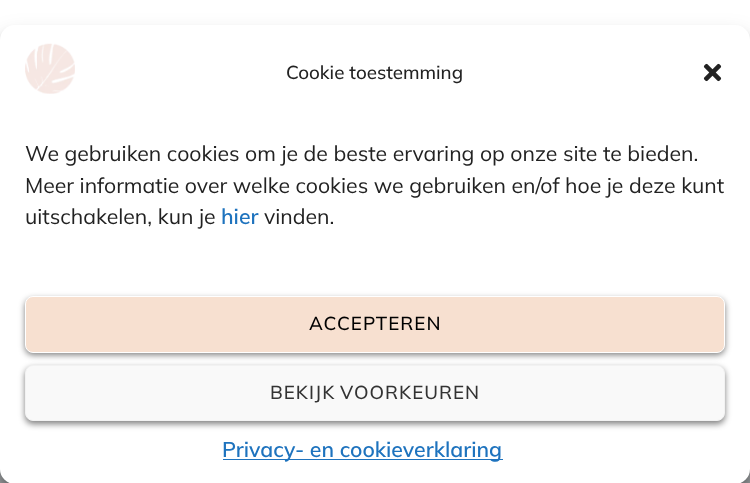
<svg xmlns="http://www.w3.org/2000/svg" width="750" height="483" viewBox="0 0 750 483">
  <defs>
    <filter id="blur1" x="-50%" y="-200%" width="200%" height="500%"><feGaussianBlur stdDeviation="4"/></filter>
    <filter id="blur2" x="-50%" y="-200%" width="200%" height="500%"><feGaussianBlur stdDeviation="12.5"/></filter>
    <filter id="blur3" x="-50%" y="-200%" width="200%" height="500%"><feGaussianBlur stdDeviation="3"/></filter>
  </defs>
  <rect width="100%" height="100%" fill="#9ea1a3"/>
  <rect x="0" y="0" width="750" height="40" fill="#ffffff"/>
  <rect x="0" y="33" width="750" height="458" rx="15" fill="#000000" fill-opacity="0.23" filter="url(#blur1)"/>
  <rect x="0" y="38" width="750" height="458" rx="15" fill="#000000" fill-opacity="0.19" filter="url(#blur2)"/>
  <rect x="0" y="25" width="750" height="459" rx="15" fill="#ffffff"/>
  <image x="25" y="43" width="50" height="51" href="img1.png"/>
  <text x="286" y="79" font-family="Mulish" font-size="18.75" font-weight="500" fill="#222222">Cookie toestemming</text>
  <image x="703" y="63" width="19" height="19" href="img2.png"/>
  <text x="25" y="161" font-family="Mulish" font-size="21.25" fill="#222222">We gebruiken cookies om je de beste ervaring op onze site te bieden.</text>
  <text x="25" y="193" font-family="Mulish" font-size="21.25" fill="#222222">Meer informatie over welke cookies we gebruiken en/of hoe je deze kunt</text>
  <text x="25" y="224" font-family="Mulish" font-size="21.25" fill="#222222">uitschakelen, kun je</text>
  <text x="221" y="224" font-family="Mulish" font-size="21.25" font-weight="600" fill="#1e73be">hier</text>
  <text x="264" y="224" font-family="Mulish" font-size="21.25" fill="#222222">vinden.</text>
  <rect x="25" y="299" width="700" height="56" rx="8" fill="#000000" fill-opacity="0.5" filter="url(#blur3)"/>
  <rect x="25.5" y="296.5" width="699" height="56" rx="7.5" fill="#f7e0d0" stroke="#ffffff"/>
  <text x="309" y="330" font-family="Mulish" font-size="18.75" font-weight="500" letter-spacing="1" fill="#000000">ACCEPTEREN</text>
  <rect x="25" y="368" width="700" height="56" rx="8" fill="#000000" fill-opacity="0.5" filter="url(#blur3)"/>
  <rect x="25.5" y="365.5" width="699" height="55" rx="7.5" fill="#f9f9f9" stroke="#f2f2f2"/>
  <text x="270" y="399" word-spacing="-1" font-family="Mulish" font-size="18.75" font-weight="500" letter-spacing="1" fill="#333333">BEKIJK VOORKEUREN</text>
  <rect x="223" y="459" width="280" height="1" fill="#1e73be"/>
  <text x="222" y="457" font-family="Mulish" font-size="21.25" font-weight="600" fill="#1e73be">Privacy- en cookieverklaring</text>
</svg>
